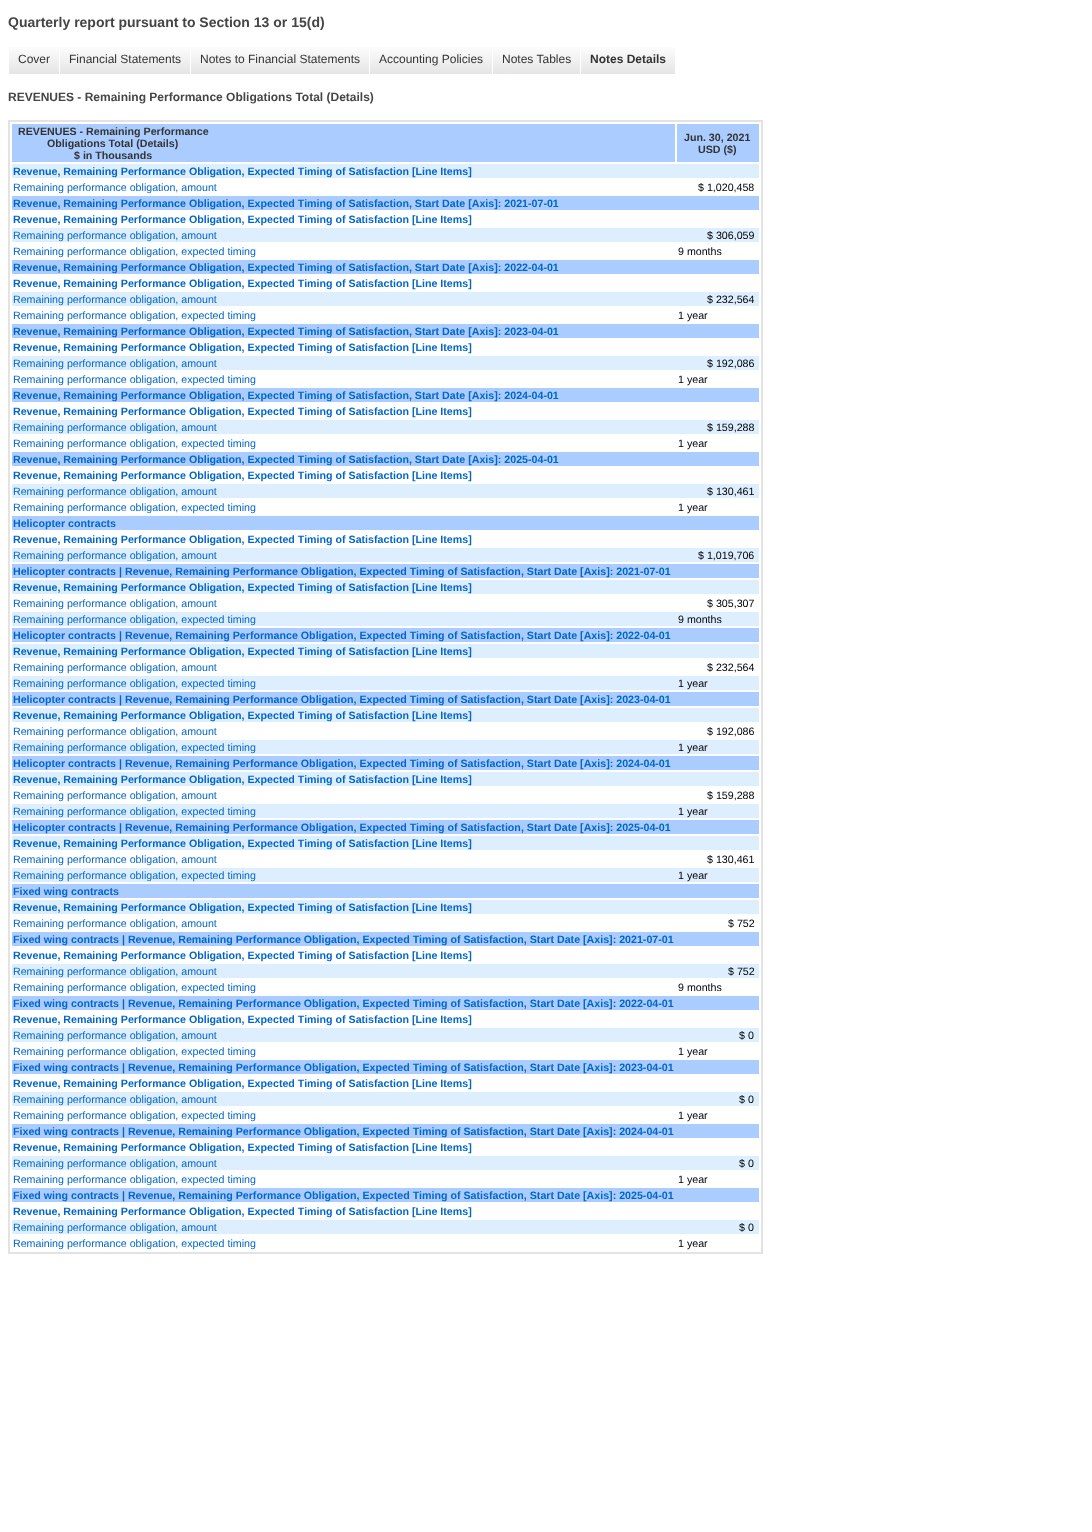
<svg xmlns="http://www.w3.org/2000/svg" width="1092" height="1532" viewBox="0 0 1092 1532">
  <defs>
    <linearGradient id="g1" gradientUnits="userSpaceOnUse" x1="34" y1="44" x2="34" y2="74"><stop offset="0" stop-color="#ffffff"/><stop offset="1" stop-color="#e5e5e5"/></linearGradient>
    <linearGradient id="g2" gradientUnits="userSpaceOnUse" x1="125" y1="44" x2="125" y2="74"><stop offset="0" stop-color="#ffffff"/><stop offset="1" stop-color="#e5e5e5"/></linearGradient>
    <linearGradient id="g3" gradientUnits="userSpaceOnUse" x1="280" y1="44" x2="280" y2="74"><stop offset="0" stop-color="#ffffff"/><stop offset="1" stop-color="#e5e5e5"/></linearGradient>
    <linearGradient id="g4" gradientUnits="userSpaceOnUse" x1="431" y1="44" x2="431" y2="74"><stop offset="0" stop-color="#ffffff"/><stop offset="1" stop-color="#e5e5e5"/></linearGradient>
    <linearGradient id="g5" gradientUnits="userSpaceOnUse" x1="537" y1="44" x2="537" y2="74"><stop offset="0" stop-color="#ffffff"/><stop offset="1" stop-color="#e5e5e5"/></linearGradient>
    <linearGradient id="g6" gradientUnits="userSpaceOnUse" x1="628" y1="44" x2="628" y2="74"><stop offset="0" stop-color="#ffffff"/><stop offset="1" stop-color="#e5e5e5"/></linearGradient>
  </defs>
  <rect width="100%" height="100%" fill="#ffffff"/>
  <text x="8" y="27" font-family="Liberation Sans" font-size="14" font-weight="bold" fill="#454545">Quarterly report pursuant to Section 13 or 15(d)</text>
  <rect x="9" y="47" width="50" height="27" fill="url(#g1)"/>
  <text x="18" y="63" font-family="Liberation Sans" font-size="12" fill="#333333">Cover</text>
  <rect x="60" y="47" width="130" height="27" fill="url(#g2)"/>
  <text x="69" y="63" font-family="Liberation Sans" font-size="12" fill="#333333">Financial Statements</text>
  <rect x="191" y="47" width="178" height="27" fill="url(#g3)"/>
  <text x="200" y="63" font-family="Liberation Sans" font-size="12" fill="#333333">Notes to Financial Statements</text>
  <rect x="370" y="47" width="122" height="27" fill="url(#g4)"/>
  <text x="379" y="63" font-family="Liberation Sans" font-size="12" fill="#333333">Accounting Policies</text>
  <rect x="493" y="47" width="87" height="27" fill="url(#g5)"/>
  <text x="502" y="63" font-family="Liberation Sans" font-size="12" fill="#333333">Notes Tables</text>
  <rect x="581" y="47" width="94" height="27" fill="url(#g6)"/>
  <text x="590" y="63" font-family="Liberation Sans" font-size="12" font-weight="bold" fill="#333333">Notes Details</text>
  <text x="8" y="101" font-family="Liberation Sans" font-size="12" font-weight="bold" fill="#454545">REVENUES - Remaining Performance Obligations Total (Details)</text>
  <rect x="9" y="121" width="753" height="1132" fill="none" stroke="#e3e3e3" stroke-width="2"/>
  <rect x="12" y="124" width="663" height="38" fill="#aaccff"/>
  <text x="18" y="135" font-family="Liberation Sans" font-size="10.67" font-weight="bold" fill="#333333">REVENUES - Remaining Performance</text>
  <text x="47" y="147" font-family="Liberation Sans" font-size="10.67" font-weight="bold" fill="#333333">Obligations Total (Details)</text>
  <text x="74" y="159" font-family="Liberation Sans" font-size="10.67" font-weight="bold" fill="#333333">$ in Thousands</text>
  <rect x="677" y="124" width="82" height="38" fill="#aaccff"/>
  <text x="684" y="141" font-family="Liberation Sans" font-size="10.67" font-weight="bold" fill="#333333">Jun. 30, 2021</text>
  <text x="698" y="153" font-family="Liberation Sans" font-size="10.67" font-weight="bold" fill="#333333">USD ($)</text>
  <rect x="12" y="164" width="747" height="14" fill="#ddeeff"/>
  <text x="13" y="175" font-family="Liberation Sans" font-size="10.67" font-weight="bold" fill="#0066cc">Revenue, Remaining Performance Obligation, Expected Timing of Satisfaction [Line Items]</text>
  <text x="13" y="191" font-family="Liberation Sans" font-size="10.67" fill="#0066cc">Remaining performance obligation, amount</text>
  <text x="698" y="191" font-family="Liberation Sans" font-size="10.67" fill="#000000">$ 1,020,458</text>
  <rect x="12" y="196" width="747" height="14" fill="#aaccff"/>
  <text x="13" y="207" font-family="Liberation Sans" font-size="10.67" font-weight="bold" fill="#0066cc">Revenue, Remaining Performance Obligation, Expected Timing of Satisfaction, Start Date [Axis]: 2021-07-01</text>
  <text x="13" y="223" font-family="Liberation Sans" font-size="10.67" font-weight="bold" fill="#0066cc">Revenue, Remaining Performance Obligation, Expected Timing of Satisfaction [Line Items]</text>
  <rect x="12" y="228" width="747" height="14" fill="#ddeeff"/>
  <text x="13" y="239" font-family="Liberation Sans" font-size="10.67" fill="#0066cc">Remaining performance obligation, amount</text>
  <text x="707" y="239" font-family="Liberation Sans" font-size="10.67" fill="#000000">$ 306,059</text>
  <text x="13" y="255" font-family="Liberation Sans" font-size="10.67" fill="#0066cc">Remaining performance obligation, expected timing</text>
  <text x="678" y="255" font-family="Liberation Sans" font-size="10.67" fill="#000000">9 months</text>
  <rect x="12" y="260" width="747" height="14" fill="#aaccff"/>
  <text x="13" y="271" font-family="Liberation Sans" font-size="10.67" font-weight="bold" fill="#0066cc">Revenue, Remaining Performance Obligation, Expected Timing of Satisfaction, Start Date [Axis]: 2022-04-01</text>
  <text x="13" y="287" font-family="Liberation Sans" font-size="10.67" font-weight="bold" fill="#0066cc">Revenue, Remaining Performance Obligation, Expected Timing of Satisfaction [Line Items]</text>
  <rect x="12" y="292" width="747" height="14" fill="#ddeeff"/>
  <text x="13" y="303" font-family="Liberation Sans" font-size="10.67" fill="#0066cc">Remaining performance obligation, amount</text>
  <text x="707" y="303" font-family="Liberation Sans" font-size="10.67" fill="#000000">$ 232,564</text>
  <text x="13" y="319" font-family="Liberation Sans" font-size="10.67" fill="#0066cc">Remaining performance obligation, expected timing</text>
  <text x="678" y="319" font-family="Liberation Sans" font-size="10.67" fill="#000000">1 year</text>
  <rect x="12" y="324" width="747" height="14" fill="#aaccff"/>
  <text x="13" y="335" font-family="Liberation Sans" font-size="10.67" font-weight="bold" fill="#0066cc">Revenue, Remaining Performance Obligation, Expected Timing of Satisfaction, Start Date [Axis]: 2023-04-01</text>
  <text x="13" y="351" font-family="Liberation Sans" font-size="10.67" font-weight="bold" fill="#0066cc">Revenue, Remaining Performance Obligation, Expected Timing of Satisfaction [Line Items]</text>
  <rect x="12" y="356" width="747" height="14" fill="#ddeeff"/>
  <text x="13" y="367" font-family="Liberation Sans" font-size="10.67" fill="#0066cc">Remaining performance obligation, amount</text>
  <text x="707" y="367" font-family="Liberation Sans" font-size="10.67" fill="#000000">$ 192,086</text>
  <text x="13" y="383" font-family="Liberation Sans" font-size="10.67" fill="#0066cc">Remaining performance obligation, expected timing</text>
  <text x="678" y="383" font-family="Liberation Sans" font-size="10.67" fill="#000000">1 year</text>
  <rect x="12" y="388" width="747" height="14" fill="#aaccff"/>
  <text x="13" y="399" font-family="Liberation Sans" font-size="10.67" font-weight="bold" fill="#0066cc">Revenue, Remaining Performance Obligation, Expected Timing of Satisfaction, Start Date [Axis]: 2024-04-01</text>
  <text x="13" y="415" font-family="Liberation Sans" font-size="10.67" font-weight="bold" fill="#0066cc">Revenue, Remaining Performance Obligation, Expected Timing of Satisfaction [Line Items]</text>
  <rect x="12" y="420" width="747" height="14" fill="#ddeeff"/>
  <text x="13" y="431" font-family="Liberation Sans" font-size="10.67" fill="#0066cc">Remaining performance obligation, amount</text>
  <text x="707" y="431" font-family="Liberation Sans" font-size="10.67" fill="#000000">$ 159,288</text>
  <text x="13" y="447" font-family="Liberation Sans" font-size="10.67" fill="#0066cc">Remaining performance obligation, expected timing</text>
  <text x="678" y="447" font-family="Liberation Sans" font-size="10.67" fill="#000000">1 year</text>
  <rect x="12" y="452" width="747" height="14" fill="#aaccff"/>
  <text x="13" y="463" font-family="Liberation Sans" font-size="10.67" font-weight="bold" fill="#0066cc">Revenue, Remaining Performance Obligation, Expected Timing of Satisfaction, Start Date [Axis]: 2025-04-01</text>
  <text x="13" y="479" font-family="Liberation Sans" font-size="10.67" font-weight="bold" fill="#0066cc">Revenue, Remaining Performance Obligation, Expected Timing of Satisfaction [Line Items]</text>
  <rect x="12" y="484" width="747" height="14" fill="#ddeeff"/>
  <text x="13" y="495" font-family="Liberation Sans" font-size="10.67" fill="#0066cc">Remaining performance obligation, amount</text>
  <text x="707" y="495" font-family="Liberation Sans" font-size="10.67" fill="#000000">$ 130,461</text>
  <text x="13" y="511" font-family="Liberation Sans" font-size="10.67" fill="#0066cc">Remaining performance obligation, expected timing</text>
  <text x="678" y="511" font-family="Liberation Sans" font-size="10.67" fill="#000000">1 year</text>
  <rect x="12" y="516" width="747" height="14" fill="#aaccff"/>
  <text x="13" y="527" font-family="Liberation Sans" font-size="10.67" font-weight="bold" fill="#0066cc">Helicopter contracts</text>
  <text x="13" y="543" font-family="Liberation Sans" font-size="10.67" font-weight="bold" fill="#0066cc">Revenue, Remaining Performance Obligation, Expected Timing of Satisfaction [Line Items]</text>
  <rect x="12" y="548" width="747" height="14" fill="#ddeeff"/>
  <text x="13" y="559" font-family="Liberation Sans" font-size="10.67" fill="#0066cc">Remaining performance obligation, amount</text>
  <text x="698" y="559" font-family="Liberation Sans" font-size="10.67" fill="#000000">$ 1,019,706</text>
  <rect x="12" y="564" width="747" height="14" fill="#aaccff"/>
  <text x="13" y="575" font-family="Liberation Sans" font-size="10.67" font-weight="bold" fill="#0066cc">Helicopter contracts | Revenue, Remaining Performance Obligation, Expected Timing of Satisfaction, Start Date [Axis]: 2021-07-01</text>
  <rect x="12" y="580" width="747" height="14" fill="#ddeeff"/>
  <text x="13" y="591" font-family="Liberation Sans" font-size="10.67" font-weight="bold" fill="#0066cc">Revenue, Remaining Performance Obligation, Expected Timing of Satisfaction [Line Items]</text>
  <text x="13" y="607" font-family="Liberation Sans" font-size="10.67" fill="#0066cc">Remaining performance obligation, amount</text>
  <text x="707" y="607" font-family="Liberation Sans" font-size="10.67" fill="#000000">$ 305,307</text>
  <rect x="12" y="612" width="747" height="14" fill="#ddeeff"/>
  <text x="13" y="623" font-family="Liberation Sans" font-size="10.67" fill="#0066cc">Remaining performance obligation, expected timing</text>
  <text x="678" y="623" font-family="Liberation Sans" font-size="10.67" fill="#000000">9 months</text>
  <rect x="12" y="628" width="747" height="14" fill="#aaccff"/>
  <text x="13" y="639" font-family="Liberation Sans" font-size="10.67" font-weight="bold" fill="#0066cc">Helicopter contracts | Revenue, Remaining Performance Obligation, Expected Timing of Satisfaction, Start Date [Axis]: 2022-04-01</text>
  <rect x="12" y="644" width="747" height="14" fill="#ddeeff"/>
  <text x="13" y="655" font-family="Liberation Sans" font-size="10.67" font-weight="bold" fill="#0066cc">Revenue, Remaining Performance Obligation, Expected Timing of Satisfaction [Line Items]</text>
  <text x="13" y="671" font-family="Liberation Sans" font-size="10.67" fill="#0066cc">Remaining performance obligation, amount</text>
  <text x="707" y="671" font-family="Liberation Sans" font-size="10.67" fill="#000000">$ 232,564</text>
  <rect x="12" y="676" width="747" height="14" fill="#ddeeff"/>
  <text x="13" y="687" font-family="Liberation Sans" font-size="10.67" fill="#0066cc">Remaining performance obligation, expected timing</text>
  <text x="678" y="687" font-family="Liberation Sans" font-size="10.67" fill="#000000">1 year</text>
  <rect x="12" y="692" width="747" height="14" fill="#aaccff"/>
  <text x="13" y="703" font-family="Liberation Sans" font-size="10.67" font-weight="bold" fill="#0066cc">Helicopter contracts | Revenue, Remaining Performance Obligation, Expected Timing of Satisfaction, Start Date [Axis]: 2023-04-01</text>
  <rect x="12" y="708" width="747" height="14" fill="#ddeeff"/>
  <text x="13" y="719" font-family="Liberation Sans" font-size="10.67" font-weight="bold" fill="#0066cc">Revenue, Remaining Performance Obligation, Expected Timing of Satisfaction [Line Items]</text>
  <text x="13" y="735" font-family="Liberation Sans" font-size="10.67" fill="#0066cc">Remaining performance obligation, amount</text>
  <text x="707" y="735" font-family="Liberation Sans" font-size="10.67" fill="#000000">$ 192,086</text>
  <rect x="12" y="740" width="747" height="14" fill="#ddeeff"/>
  <text x="13" y="751" font-family="Liberation Sans" font-size="10.67" fill="#0066cc">Remaining performance obligation, expected timing</text>
  <text x="678" y="751" font-family="Liberation Sans" font-size="10.67" fill="#000000">1 year</text>
  <rect x="12" y="756" width="747" height="14" fill="#aaccff"/>
  <text x="13" y="767" font-family="Liberation Sans" font-size="10.67" font-weight="bold" fill="#0066cc">Helicopter contracts | Revenue, Remaining Performance Obligation, Expected Timing of Satisfaction, Start Date [Axis]: 2024-04-01</text>
  <rect x="12" y="772" width="747" height="14" fill="#ddeeff"/>
  <text x="13" y="783" font-family="Liberation Sans" font-size="10.67" font-weight="bold" fill="#0066cc">Revenue, Remaining Performance Obligation, Expected Timing of Satisfaction [Line Items]</text>
  <text x="13" y="799" font-family="Liberation Sans" font-size="10.67" fill="#0066cc">Remaining performance obligation, amount</text>
  <text x="707" y="799" font-family="Liberation Sans" font-size="10.67" fill="#000000">$ 159,288</text>
  <rect x="12" y="804" width="747" height="14" fill="#ddeeff"/>
  <text x="13" y="815" font-family="Liberation Sans" font-size="10.67" fill="#0066cc">Remaining performance obligation, expected timing</text>
  <text x="678" y="815" font-family="Liberation Sans" font-size="10.67" fill="#000000">1 year</text>
  <rect x="12" y="820" width="747" height="14" fill="#aaccff"/>
  <text x="13" y="831" font-family="Liberation Sans" font-size="10.67" font-weight="bold" fill="#0066cc">Helicopter contracts | Revenue, Remaining Performance Obligation, Expected Timing of Satisfaction, Start Date [Axis]: 2025-04-01</text>
  <rect x="12" y="836" width="747" height="14" fill="#ddeeff"/>
  <text x="13" y="847" font-family="Liberation Sans" font-size="10.67" font-weight="bold" fill="#0066cc">Revenue, Remaining Performance Obligation, Expected Timing of Satisfaction [Line Items]</text>
  <text x="13" y="863" font-family="Liberation Sans" font-size="10.67" fill="#0066cc">Remaining performance obligation, amount</text>
  <text x="707" y="863" font-family="Liberation Sans" font-size="10.67" fill="#000000">$ 130,461</text>
  <rect x="12" y="868" width="747" height="14" fill="#ddeeff"/>
  <text x="13" y="879" font-family="Liberation Sans" font-size="10.67" fill="#0066cc">Remaining performance obligation, expected timing</text>
  <text x="678" y="879" font-family="Liberation Sans" font-size="10.67" fill="#000000">1 year</text>
  <rect x="12" y="884" width="747" height="14" fill="#aaccff"/>
  <text x="13" y="895" font-family="Liberation Sans" font-size="10.67" font-weight="bold" fill="#0066cc">Fixed wing contracts</text>
  <rect x="12" y="900" width="747" height="14" fill="#ddeeff"/>
  <text x="13" y="911" font-family="Liberation Sans" font-size="10.67" font-weight="bold" fill="#0066cc">Revenue, Remaining Performance Obligation, Expected Timing of Satisfaction [Line Items]</text>
  <text x="13" y="927" font-family="Liberation Sans" font-size="10.67" fill="#0066cc">Remaining performance obligation, amount</text>
  <text x="728" y="927" font-family="Liberation Sans" font-size="10.67" fill="#000000">$ 752</text>
  <rect x="12" y="932" width="747" height="14" fill="#aaccff"/>
  <text x="13" y="943" font-family="Liberation Sans" font-size="10.67" font-weight="bold" fill="#0066cc">Fixed wing contracts | Revenue, Remaining Performance Obligation, Expected Timing of Satisfaction, Start Date [Axis]: 2021-07-01</text>
  <text x="13" y="959" font-family="Liberation Sans" font-size="10.67" font-weight="bold" fill="#0066cc">Revenue, Remaining Performance Obligation, Expected Timing of Satisfaction [Line Items]</text>
  <rect x="12" y="964" width="747" height="14" fill="#ddeeff"/>
  <text x="13" y="975" font-family="Liberation Sans" font-size="10.67" fill="#0066cc">Remaining performance obligation, amount</text>
  <text x="728" y="975" font-family="Liberation Sans" font-size="10.67" fill="#000000">$ 752</text>
  <text x="13" y="991" font-family="Liberation Sans" font-size="10.67" fill="#0066cc">Remaining performance obligation, expected timing</text>
  <text x="678" y="991" font-family="Liberation Sans" font-size="10.67" fill="#000000">9 months</text>
  <rect x="12" y="996" width="747" height="14" fill="#aaccff"/>
  <text x="13" y="1007" font-family="Liberation Sans" font-size="10.67" font-weight="bold" fill="#0066cc">Fixed wing contracts | Revenue, Remaining Performance Obligation, Expected Timing of Satisfaction, Start Date [Axis]: 2022-04-01</text>
  <text x="13" y="1023" font-family="Liberation Sans" font-size="10.67" font-weight="bold" fill="#0066cc">Revenue, Remaining Performance Obligation, Expected Timing of Satisfaction [Line Items]</text>
  <rect x="12" y="1028" width="747" height="14" fill="#ddeeff"/>
  <text x="13" y="1039" font-family="Liberation Sans" font-size="10.67" fill="#0066cc">Remaining performance obligation, amount</text>
  <text x="739" y="1039" font-family="Liberation Sans" font-size="10.67" fill="#000000">$ 0</text>
  <text x="13" y="1055" font-family="Liberation Sans" font-size="10.67" fill="#0066cc">Remaining performance obligation, expected timing</text>
  <text x="678" y="1055" font-family="Liberation Sans" font-size="10.67" fill="#000000">1 year</text>
  <rect x="12" y="1060" width="747" height="14" fill="#aaccff"/>
  <text x="13" y="1071" font-family="Liberation Sans" font-size="10.67" font-weight="bold" fill="#0066cc">Fixed wing contracts | Revenue, Remaining Performance Obligation, Expected Timing of Satisfaction, Start Date [Axis]: 2023-04-01</text>
  <text x="13" y="1087" font-family="Liberation Sans" font-size="10.67" font-weight="bold" fill="#0066cc">Revenue, Remaining Performance Obligation, Expected Timing of Satisfaction [Line Items]</text>
  <rect x="12" y="1092" width="747" height="14" fill="#ddeeff"/>
  <text x="13" y="1103" font-family="Liberation Sans" font-size="10.67" fill="#0066cc">Remaining performance obligation, amount</text>
  <text x="739" y="1103" font-family="Liberation Sans" font-size="10.67" fill="#000000">$ 0</text>
  <text x="13" y="1119" font-family="Liberation Sans" font-size="10.67" fill="#0066cc">Remaining performance obligation, expected timing</text>
  <text x="678" y="1119" font-family="Liberation Sans" font-size="10.67" fill="#000000">1 year</text>
  <rect x="12" y="1124" width="747" height="14" fill="#aaccff"/>
  <text x="13" y="1135" font-family="Liberation Sans" font-size="10.67" font-weight="bold" fill="#0066cc">Fixed wing contracts | Revenue, Remaining Performance Obligation, Expected Timing of Satisfaction, Start Date [Axis]: 2024-04-01</text>
  <text x="13" y="1151" font-family="Liberation Sans" font-size="10.67" font-weight="bold" fill="#0066cc">Revenue, Remaining Performance Obligation, Expected Timing of Satisfaction [Line Items]</text>
  <rect x="12" y="1156" width="747" height="14" fill="#ddeeff"/>
  <text x="13" y="1167" font-family="Liberation Sans" font-size="10.67" fill="#0066cc">Remaining performance obligation, amount</text>
  <text x="739" y="1167" font-family="Liberation Sans" font-size="10.67" fill="#000000">$ 0</text>
  <text x="13" y="1183" font-family="Liberation Sans" font-size="10.67" fill="#0066cc">Remaining performance obligation, expected timing</text>
  <text x="678" y="1183" font-family="Liberation Sans" font-size="10.67" fill="#000000">1 year</text>
  <rect x="12" y="1188" width="747" height="14" fill="#aaccff"/>
  <text x="13" y="1199" font-family="Liberation Sans" font-size="10.67" font-weight="bold" fill="#0066cc">Fixed wing contracts | Revenue, Remaining Performance Obligation, Expected Timing of Satisfaction, Start Date [Axis]: 2025-04-01</text>
  <text x="13" y="1215" font-family="Liberation Sans" font-size="10.67" font-weight="bold" fill="#0066cc">Revenue, Remaining Performance Obligation, Expected Timing of Satisfaction [Line Items]</text>
  <rect x="12" y="1220" width="747" height="14" fill="#ddeeff"/>
  <text x="13" y="1231" font-family="Liberation Sans" font-size="10.67" fill="#0066cc">Remaining performance obligation, amount</text>
  <text x="739" y="1231" font-family="Liberation Sans" font-size="10.67" fill="#000000">$ 0</text>
  <text x="13" y="1247" font-family="Liberation Sans" font-size="10.67" fill="#0066cc">Remaining performance obligation, expected timing</text>
  <text x="678" y="1247" font-family="Liberation Sans" font-size="10.67" fill="#000000">1 year</text>
</svg>
